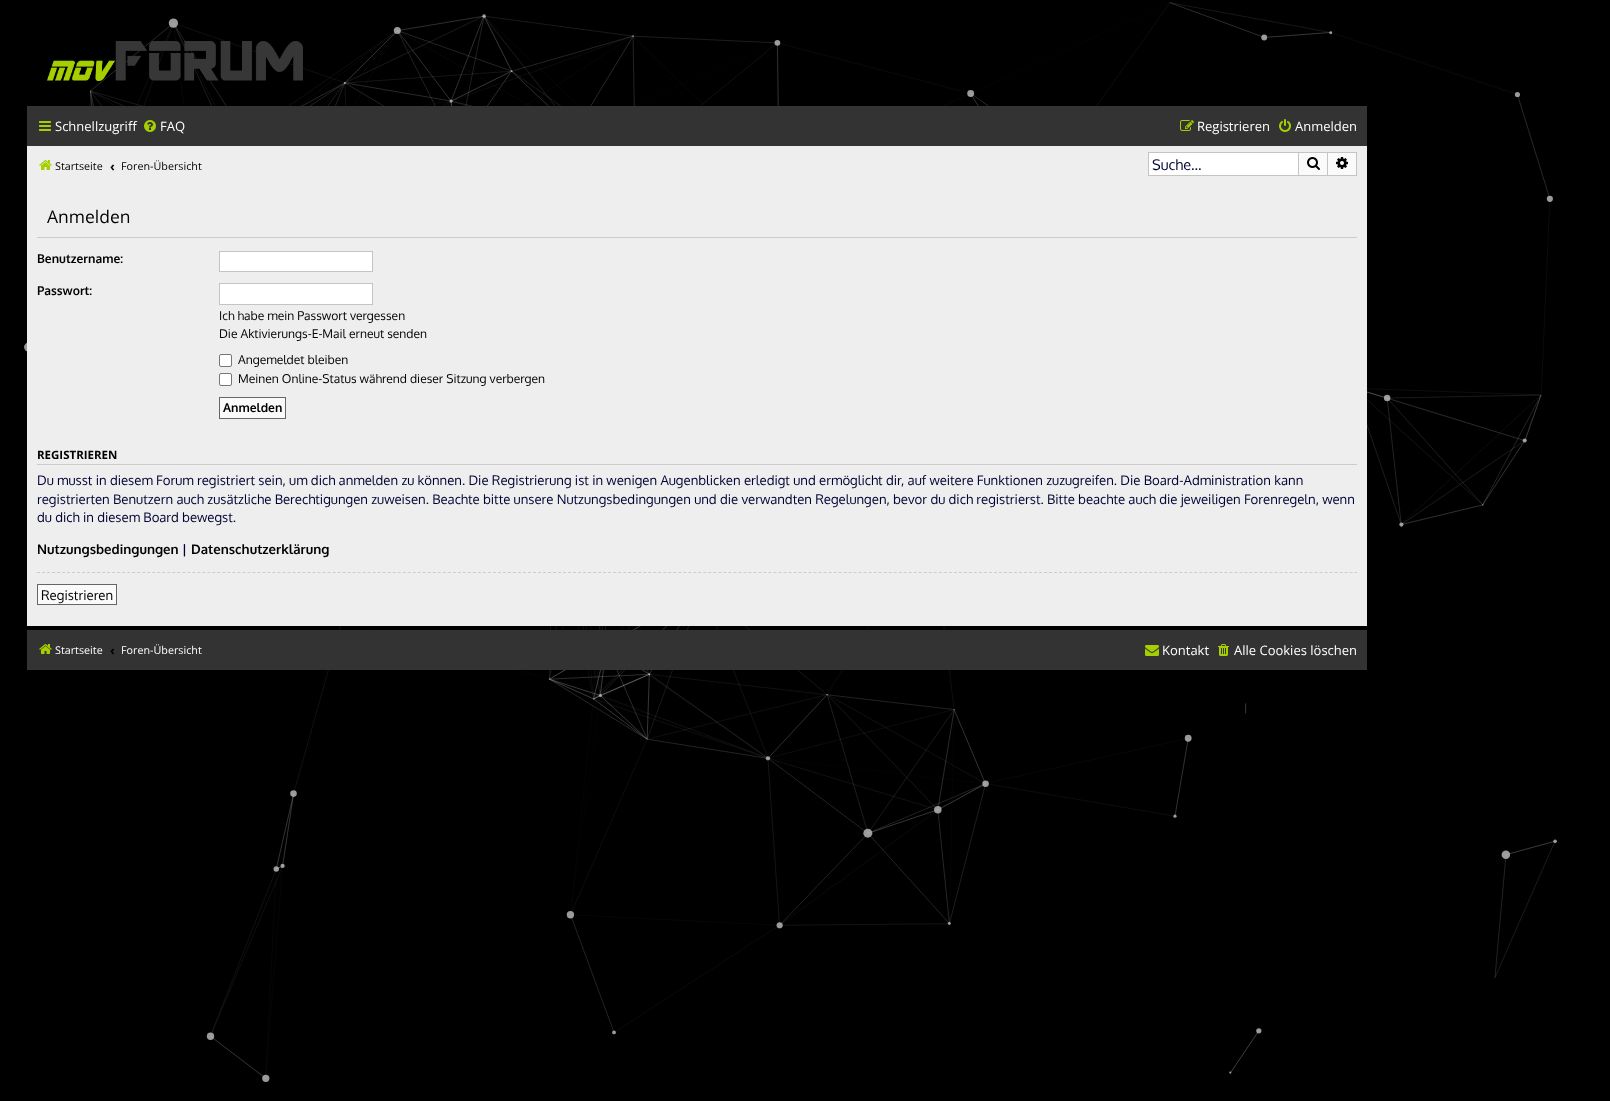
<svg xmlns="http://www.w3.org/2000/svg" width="1610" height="1101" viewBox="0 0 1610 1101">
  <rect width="100%" height="100%" fill="#000000"/>
  <image x="24" y="2" width="1533" height="1080" href="img1.png"/>
  <image x="47" y="41" width="256" height="40" href="img2.png"/>
  <rect x="27" y="106" width="1340" height="40" fill="#333333"/>
  <image x="39" y="121" width="12" height="10" href="img3.png"/>
  <text x="55" y="131" font-family="Open Sans" font-size="13" fill="#ffffff">Schnellzugriff</text>
  <image x="144" y="120" width="12" height="12" href="img4.png"/>
  <text x="160" y="131" font-family="Open Sans" font-size="13" fill="#ffffff">FAQ</text>
  <image x="1180" y="120" width="14" height="11" href="img5.png"/>
  <text x="1197" y="131" font-family="Open Sans" font-size="13" fill="#ffffff">Registrieren</text>
  <image x="1279" y="119" width="12" height="13" href="img6.png"/>
  <text x="1295" y="131" font-family="Open Sans" font-size="13" fill="#ffffff">Anmelden</text>
  <rect x="27" y="146" width="1340" height="480" fill="#eeeeee"/>
  <image x="39" y="160" width="13" height="10" href="img7.png"/>
  <text x="55" y="170" font-family="Open Sans" font-size="10.75" fill="#000000">Startseite</text>
  <text x="110" y="171" font-family="Open Sans" font-size="13" font-weight="bold" fill="#000000">‹</text>
  <text x="121" y="170" font-family="Open Sans" font-size="10.75" fill="#000000">Foren-Übersicht</text>
  <rect x="1149" y="153" width="149" height="22" fill="#ffffff"/>
  <rect x="1148" y="152" width="150" height="1" fill="#c7c3bf"/>
  <rect x="1148" y="175" width="150" height="1" fill="#c7c3bf"/>
  <rect x="1148" y="152" width="1" height="24" fill="#c7c3bf"/>
  <text x="1152" y="170" font-family="Oxygen" font-size="14.5" fill="#000333">Suche…</text>
  <rect x="1298.5" y="152.5" width="29" height="23" fill="#fafafa" stroke="#c7c3bf"/>
  <image x="1307" y="157" width="13" height="13" href="img8.png"/>
  <rect x="1328" y="153" width="28" height="22" fill="#fafafa"/>
  <rect x="1328" y="152" width="29" height="1" fill="#c7c3bf"/>
  <rect x="1356" y="152" width="1" height="24" fill="#c7c3bf"/>
  <rect x="1328" y="175" width="29" height="1" fill="#c7c3bf"/>
  <image x="1336" y="157" width="12" height="12" href="img9.png"/>
  <rect x="37" y="237" width="1320" height="1" fill="#cccccc"/>
  <text x="47" y="223" font-family="Open Sans" font-size="17.5" fill="#000000">Anmelden</text>
  <text x="37" y="263" font-family="Oxygen" font-size="12.1" font-weight="bold" fill="#000000">Benutzername:</text>
  <rect x="219.5" y="251.5" width="153" height="20" fill="#ffffff" stroke="#c7c3bf"/>
  <text x="37" y="295" font-family="Oxygen" font-size="12.1" font-weight="bold" fill="#000000">Passwort:</text>
  <rect x="219.5" y="283.5" width="153" height="21" fill="#ffffff" stroke="#c7c3bf"/>
  <text x="219" y="320" font-family="Oxygen" font-size="12.1" fill="#000000">Ich habe mein Passwort vergessen</text>
  <text x="219" y="338" font-family="Oxygen" font-size="12.1" fill="#000000">Die Aktivierungs-E-Mail erneut senden</text>
  <rect x="219.5" y="354.5" width="12" height="12" rx="1.5" fill="#ffffff" stroke="#767676"/>
  <text x="238" y="364" font-family="Oxygen" font-size="12.1" fill="#000000">Angemeldet bleiben</text>
  <rect x="219.5" y="373.5" width="12" height="12" rx="1.5" fill="#ffffff" stroke="#767676"/>
  <text x="238" y="383" font-family="Oxygen" font-size="12.1" fill="#000000">Meinen Online-Status während dieser Sitzung verbergen</text>
  <rect x="219.5" y="397.5" width="66" height="21" fill="#fafafa" stroke="#666666"/>
  <text x="223" y="412" font-family="Oxygen" font-size="12.1" font-weight="bold" fill="#000000">Anmelden</text>
  <rect x="37" y="464" width="1320" height="1" fill="#cccccc"/>
  <text x="37" y="459" font-family="Open Sans" font-size="11.5" font-weight="bold" fill="#000000">REGISTRIEREN</text>
  <text x="37" y="485" font-family="Oxygen" font-size="13.2" fill="#000333">Du musst in diesem Forum registriert sein, um dich anmelden zu können. Die Registrierung ist in wenigen Augenblicken erledigt und ermöglicht dir, auf weitere Funktionen zuzugreifen. Die Board-Administration kann</text>
  <text x="37" y="504" font-family="Oxygen" font-size="13.2" fill="#000333">registrierten Benutzern auch zusätzliche Berechtigungen zuweisen. Beachte bitte unsere Nutzungsbedingungen und die verwandten Regelungen, bevor du dich registrierst. Bitte beachte auch die jeweiligen Forenregeln, wenn</text>
  <text x="37" y="522" font-family="Oxygen" font-size="13.2" fill="#000333">du dich in diesem Board bewegst.</text>
  <text x="37" y="554" font-family="Oxygen" font-size="13.2" font-weight="bold" fill="#000000">Nutzungsbedingungen</text>
  <text x="182" y="554" font-family="Oxygen" font-size="13.2" font-weight="bold" fill="#000333">|</text>
  <text x="191" y="554" font-family="Oxygen" font-size="13.2" font-weight="bold" fill="#000000">Datenschutzerklärung</text>
  <path d="M37 572.5H1357" fill="none" stroke="#cccccc" stroke-dasharray="3 2.01"/>
  <rect x="37.5" y="584.5" width="79" height="20" fill="#fafafa" stroke="#666666"/>
  <text x="41" y="600" font-family="Oxygen" font-size="13.2" fill="#000000">Registrieren</text>
  <rect x="27" y="630" width="1340" height="40" fill="#333333"/>
  <image x="39" y="644" width="13" height="10" href="img10.png"/>
  <text x="55" y="654" font-family="Open Sans" font-size="10.75" fill="#ffffff">Startseite</text>
  <text x="110" y="655" font-family="Open Sans" font-size="13" font-weight="bold" fill="#000000">‹</text>
  <text x="121" y="654" font-family="Open Sans" font-size="10.75" fill="#ffffff">Foren-Übersicht</text>
  <image x="1145" y="645" width="14" height="11" href="img11.png"/>
  <text x="1162" y="655" font-family="Open Sans" font-size="13" fill="#ffffff">Kontakt</text>
  <image x="1218" y="644" width="11" height="12" href="img12.png"/>
  <text x="1234" y="655" font-family="Open Sans" font-size="13" fill="#ffffff">Alle Cookies löschen</text>
  <text x="1243" y="711" font-family="Open Sans" font-size="10" fill="#555555">|</text>
</svg>
